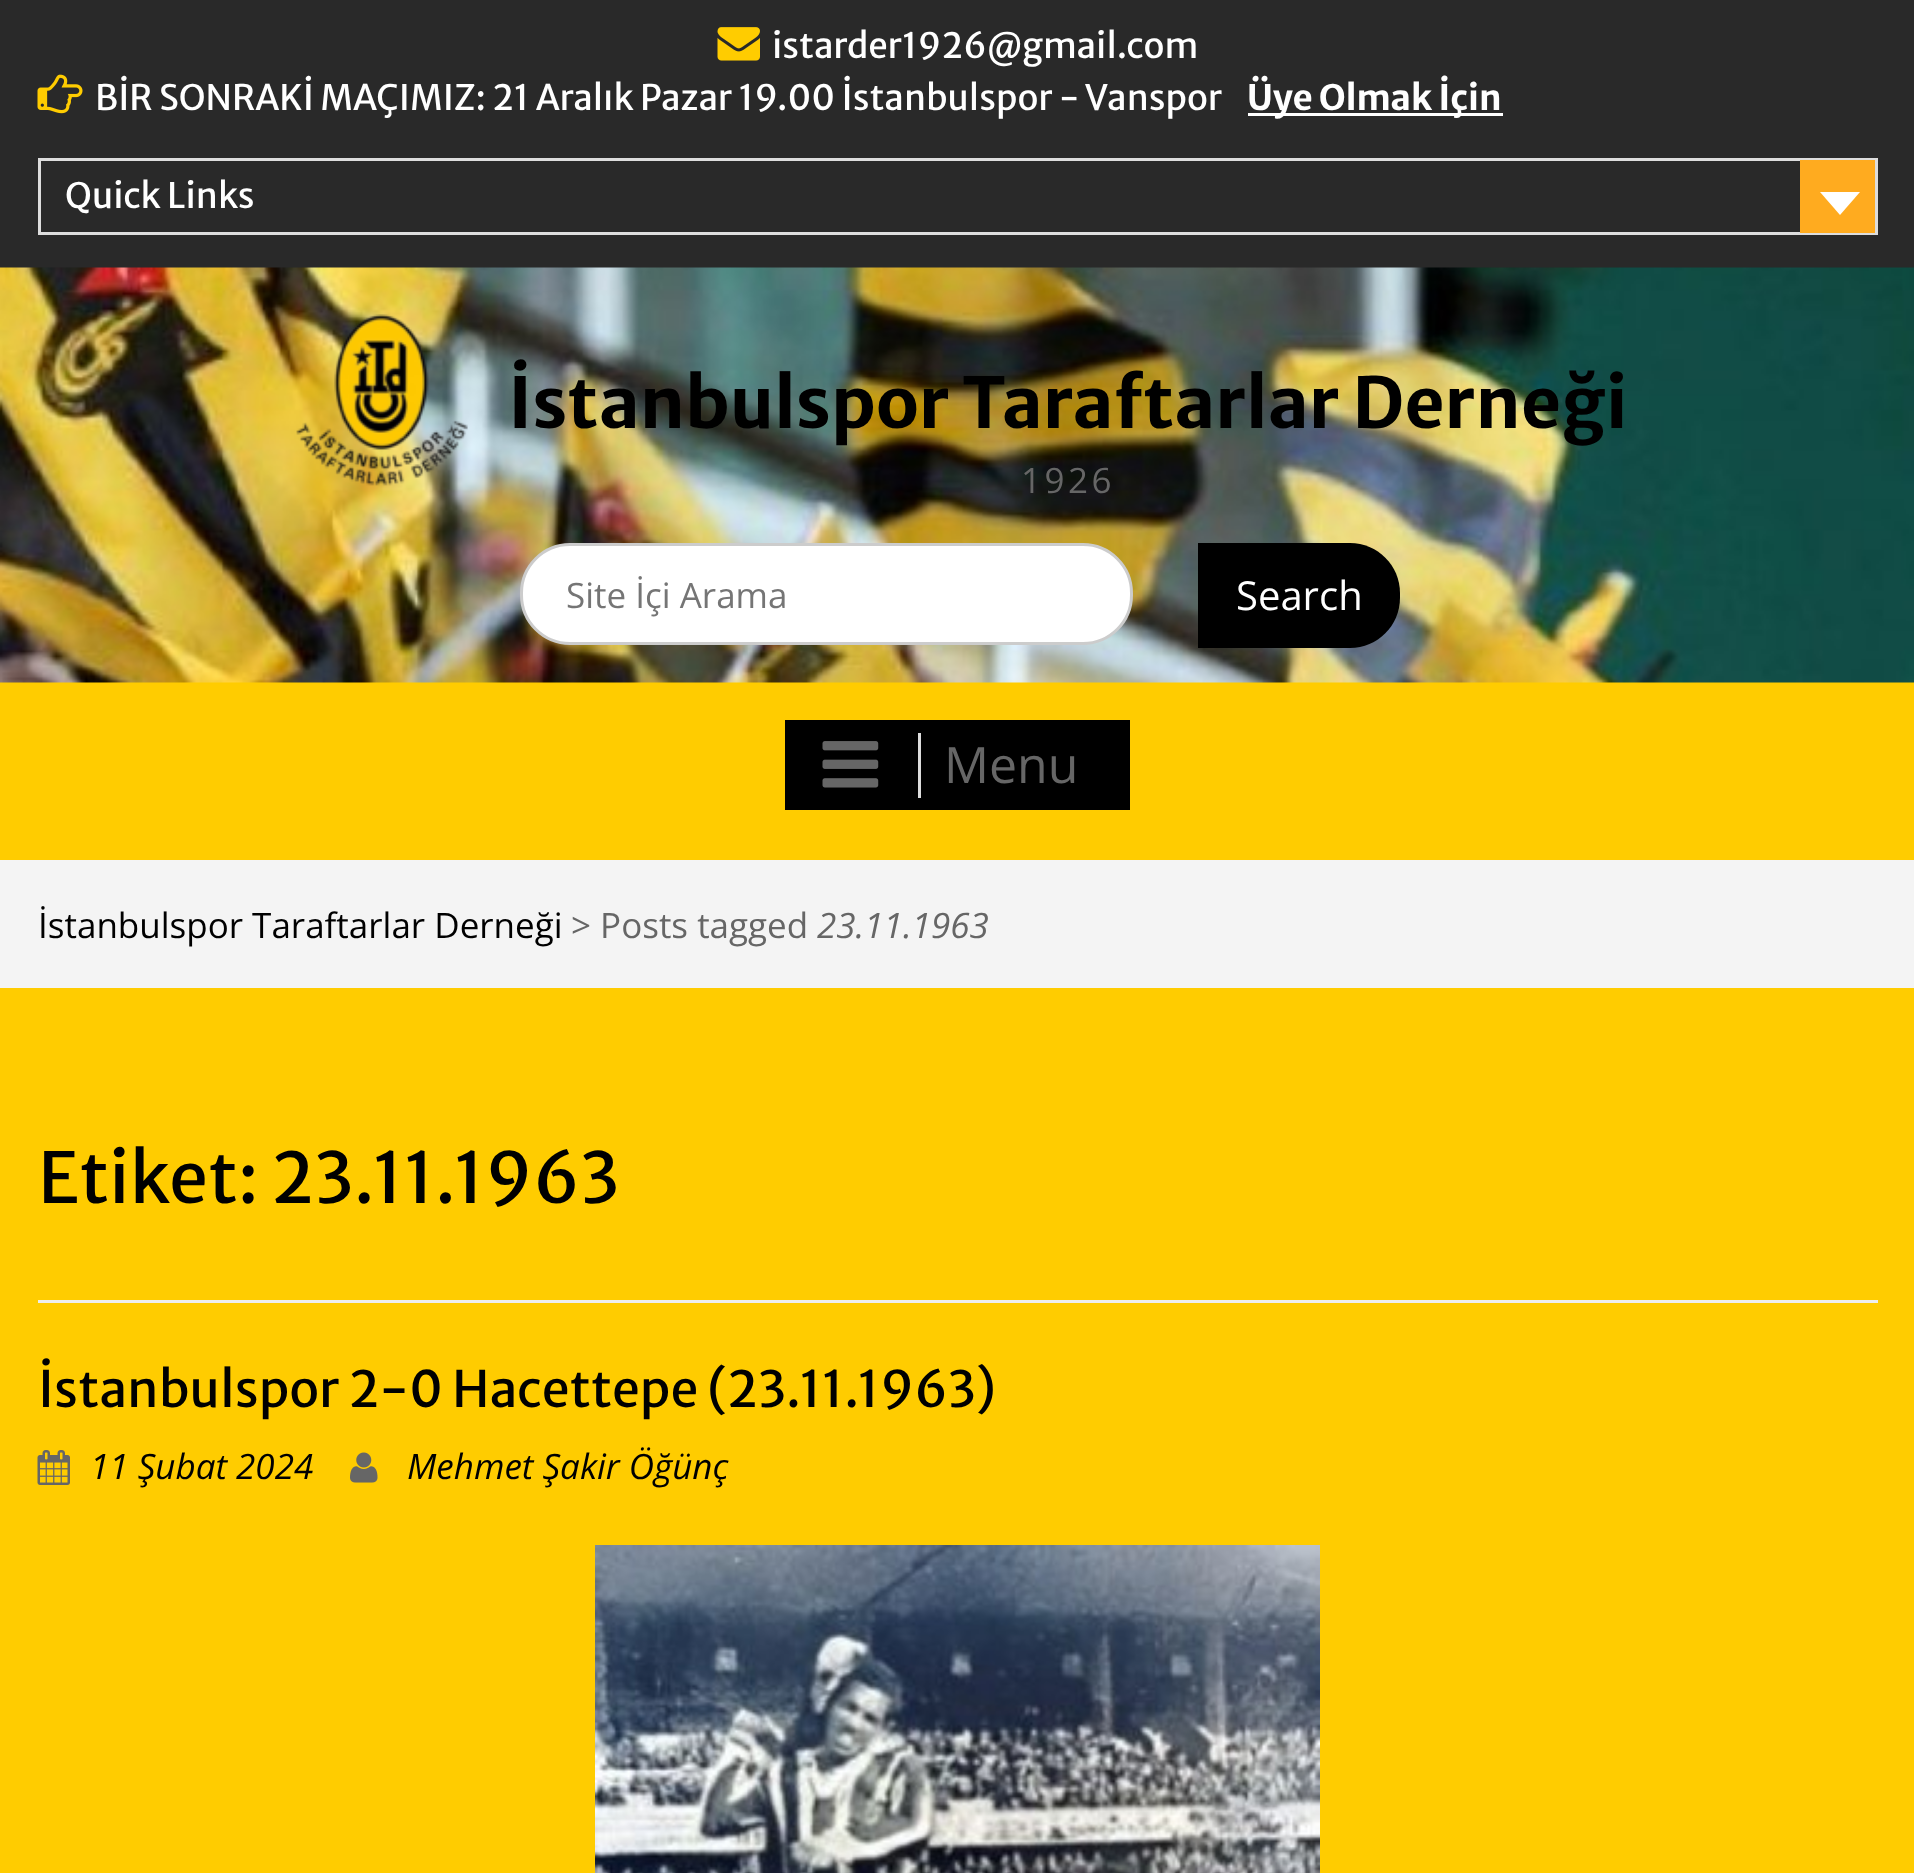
<svg xmlns="http://www.w3.org/2000/svg" width="1914" height="1873" viewBox="0 0 1914 1873">
  <rect width="100%" height="100%" fill="#ffcc00"/>
  <rect x="0" y="0" width="1914" height="268" fill="#292929"/>
  <image x="717" y="27" width="43" height="34" href="img1.png"/>
  <text x="772" y="58" font-family="Merriweather Sans" font-size="35" fill="#ffffff">istarder1926@gmail.com</text>
  <image x="37" y="74" width="46" height="40" href="img2.png"/>
  <text x="95" y="110" font-family="Merriweather Sans" font-size="35" fill="#ffffff">BİR SONRAKİ MAÇIMIZ: 21 Aralık Pazar 19.00 İstanbulspor - Vanspor</text>
  <rect x="1248" y="113" width="255" height="3" fill="#ffffff"/>
  <text x="1247" y="110" font-family="Merriweather Sans" font-size="35" font-weight="bold" fill="#ffffff">Üye Olmak İçin</text>
  <rect x="39.5" y="159.5" width="1837" height="74" fill="none" stroke="#dddddd" stroke-width="3"/>
  <text x="65" y="208" font-family="Merriweather Sans" font-size="35" fill="#ffffff">Quick Links</text>
  <rect x="1800" y="160" width="75" height="73" fill="#ffab1f"/>
  <path d="M1820 192H1860L1840 215Z" fill="#ffffff"/>
  <image x="0" y="267" width="1914" height="416" href="img3.png"/>
  <image x="296" y="314" width="172" height="172" href="img4.png"/>
  <text x="508" y="428" font-family="Merriweather Sans" font-size="70" font-weight="bold" fill="#000000">İstanbulspor Taraftarlar Derneği</text>
  <text x="1021" y="493" font-family="Open Sans" font-size="35" letter-spacing="3.5" fill="#666666">1926</text>
  <rect x="521.5" y="544.5" width="610" height="99" rx="48.5" fill="#ffffff" stroke="#cccccc" stroke-width="3"/>
  <text x="566" y="608" font-family="Open Sans" font-size="35" fill="#757575">Site İçi Arama</text>
  <path d="M1198 543H1350C1377.5 543 1400 565.5 1400 593V598C1400 625.5 1377.5 648 1350 648H1198Z" fill="#000000"/>
  <text x="1236" y="610" font-family="Open Sans" font-size="40" fill="#ffffff">Search</text>
  <rect x="785" y="720" width="345" height="90" fill="#000000"/>
  <rect x="918" y="733" width="3" height="65" fill="#dddddd"/>
  <image x="822" y="741" width="57" height="47" href="img5.png"/>
  <text x="944" y="783" font-family="Open Sans" font-size="50" fill="#666666">Menu</text>
  <rect x="0" y="860" width="1914" height="128" fill="#f4f4f4"/>
  <text x="38" y="938" font-family="Open Sans" font-size="35" fill="#000000">İstanbulspor Taraftarlar Derneği</text>
  <text x="571" y="938" font-family="Open Sans" font-size="35" fill="#666666">&gt; Posts tagged</text>
  <text x="817" y="938" font-family="Open Sans" font-size="35" font-style="italic" fill="#666666">23.11.1963</text>
  <rect x="38" y="1300" width="1840" height="3" fill="#eeeeee"/>
  <text x="38" y="1203" font-family="Merriweather Sans" font-size="70" fill="#000000">Etiket: 23.11.1963</text>
  <text x="38" y="1407" font-family="Merriweather Sans" font-size="50" fill="#000000">İstanbulspor 2-0 Hacettepe (23.11.1963)</text>
  <image x="37" y="1450" width="33" height="35" href="img6.png"/>
  <text x="90" y="1479" font-family="Open Sans" font-size="35" font-style="italic" fill="#000000">11 Şubat 2024</text>
  <image x="350" y="1452" width="28" height="31" href="img7.png"/>
  <text x="407" y="1479" font-family="Open Sans" font-size="35" font-style="italic" fill="#000000">Mehmet Şakir Öğünç</text>
  <image x="595" y="1545" width="725" height="328" href="img8.png"/>
</svg>
